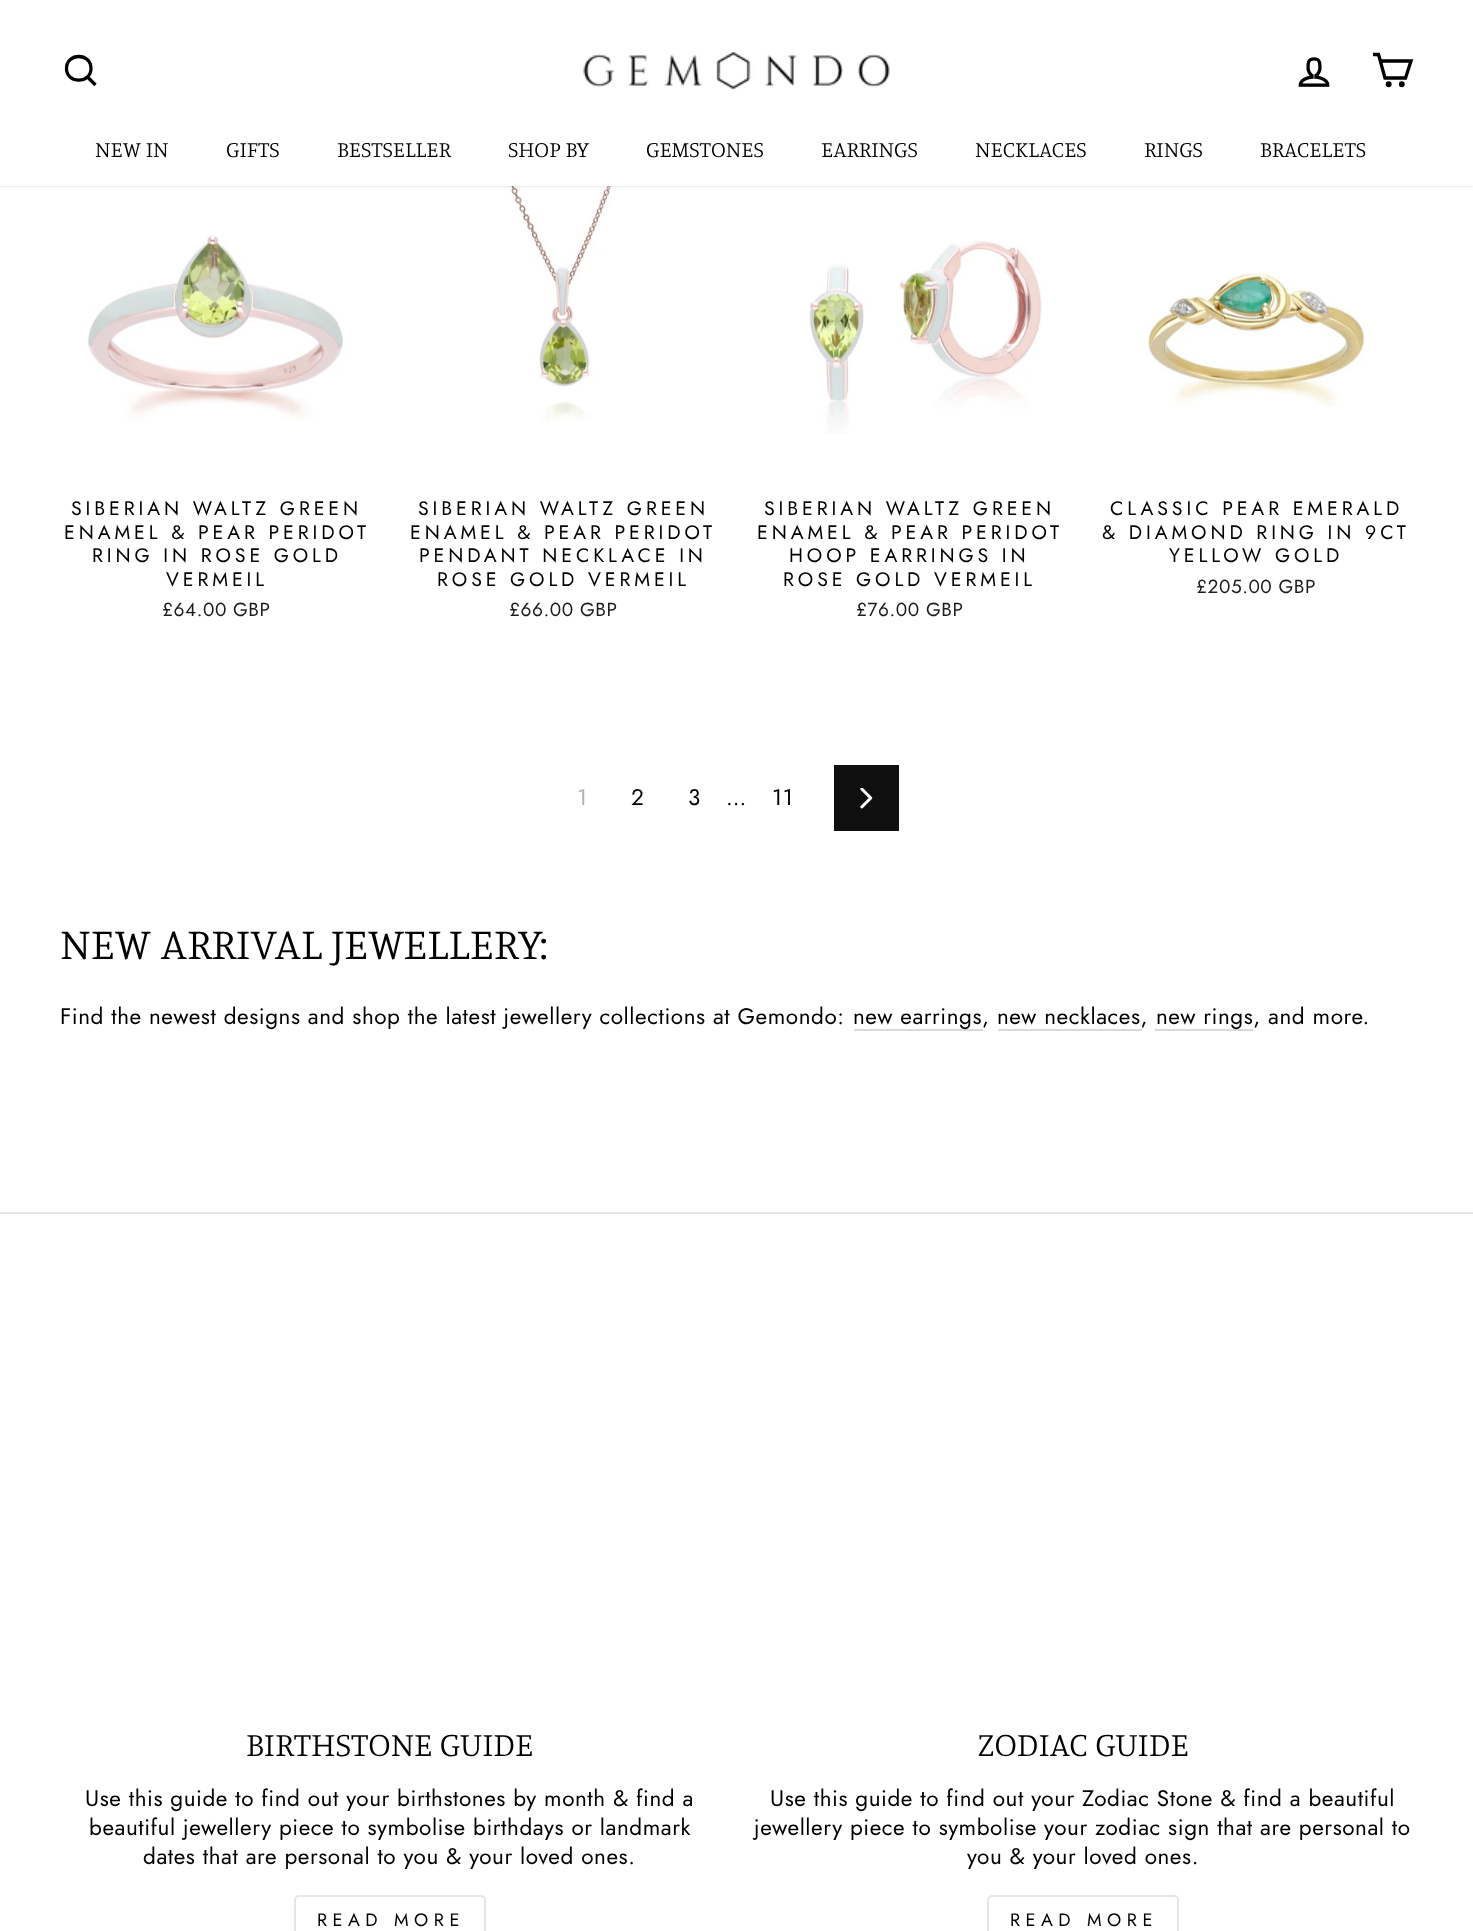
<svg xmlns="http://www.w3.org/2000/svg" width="1473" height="1931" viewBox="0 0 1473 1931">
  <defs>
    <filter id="blur1" x="-50%" y="-200%" width="200%" height="500%"><feGaussianBlur stdDeviation="1"/></filter>
  </defs>
  <rect width="100%" height="100%" fill="#ffffff"/>
  <image x="503" y="186" width="121" height="235" href="img4.png"/>
  <rect x="0" y="0" width="1473" height="186" fill="#000000" fill-opacity="0.2" filter="url(#blur1)"/>
  <rect x="0" y="0" width="1473" height="186" fill="#ffffff"/>
  <path d="M91 68.5C91 84 66.5 84 66.5 68.5C66.5 52.5 91 52.5 91 68.5ZM95.5 85L87.5 77" fill="none" stroke="#000000" stroke-width="3.3"/>
  <image x="583" y="51" width="307" height="39" href="img1.png"/>
  <image x="1298" y="57" width="32" height="30" href="img2.png"/>
  <path d="M1380 61H1411L1405.5 78H1385L1378.5 54.5H1373" fill="none" stroke="#000000" stroke-width="3.3"/>
  <circle cx="1388.7" cy="84.3" r="1.3" fill="#000000" stroke="#000000" stroke-width="3.3"/>
  <circle cx="1401.8" cy="84.3" r="1.3" fill="#000000" stroke="#000000" stroke-width="3.3"/>
  <text x="95" y="157" font-family="Manuale" font-size="22.5" font-weight="300" fill="#000000">NEW IN</text>
  <text x="226" y="157" font-family="Manuale" font-size="22.5" font-weight="300" fill="#000000">GIFTS</text>
  <text x="337" y="157" font-family="Manuale" font-size="22.5" font-weight="300" fill="#000000">BESTSELLER</text>
  <text x="508" y="157" font-family="Manuale" font-size="22.5" font-weight="300" fill="#000000">SHOP BY</text>
  <text x="646" y="157" font-family="Manuale" font-size="22.5" font-weight="300" fill="#000000">GEMSTONES</text>
  <text x="821" y="157" font-family="Manuale" font-size="22.5" font-weight="300" fill="#000000">EARRINGS</text>
  <text x="975" y="157" font-family="Manuale" font-size="22.5" font-weight="300" fill="#000000">NECKLACES</text>
  <text x="1144" y="157" font-family="Manuale" font-size="22.5" font-weight="300" fill="#000000">RINGS</text>
  <text x="1260" y="157" font-family="Manuale" font-size="22.5" font-weight="300" fill="#000000">BRACELETS</text>
  <image x="88" y="235" width="256" height="185" href="img3.png"/>
  <text x="71" y="515" font-family="Jost" font-size="19.5" letter-spacing="3.9" fill="#000000">SIBERIAN WALTZ GREEN</text>
  <text x="64" y="539" font-family="Jost" font-size="19.5" letter-spacing="3.9" fill="#000000">ENAMEL &amp; PEAR PERIDOT</text>
  <text x="92" y="562" font-family="Jost" font-size="19.5" letter-spacing="3.9" fill="#000000">RING IN ROSE GOLD</text>
  <text x="166" y="586" font-family="Jost" font-size="19.5" letter-spacing="3.9" fill="#000000">VERMEIL</text>
  <text x="162" y="616" font-family="Jost" font-size="19" letter-spacing="0.55" fill="#1c1d1d">£64.00 GBP</text>
  <text x="418" y="515" font-family="Jost" font-size="19.5" letter-spacing="3.9" fill="#000000">SIBERIAN WALTZ GREEN</text>
  <text x="410" y="539" font-family="Jost" font-size="19.5" letter-spacing="3.9" fill="#000000">ENAMEL &amp; PEAR PERIDOT</text>
  <text x="419" y="562" font-family="Jost" font-size="19.5" letter-spacing="3.9" fill="#000000">PENDANT NECKLACE IN</text>
  <text x="437" y="586" font-family="Jost" font-size="19.5" letter-spacing="3.9" fill="#000000">ROSE GOLD VERMEIL</text>
  <text x="509" y="616" font-family="Jost" font-size="19" letter-spacing="0.55" fill="#1c1d1d">£66.00 GBP</text>
  <image x="809" y="240" width="233" height="194" href="img5.png"/>
  <text x="764" y="515" font-family="Jost" font-size="19.5" letter-spacing="3.9" fill="#000000">SIBERIAN WALTZ GREEN</text>
  <text x="757" y="539" font-family="Jost" font-size="19.5" letter-spacing="3.9" fill="#000000">ENAMEL &amp; PEAR PERIDOT</text>
  <text x="789" y="562" font-family="Jost" font-size="19.5" letter-spacing="3.9" fill="#000000">HOOP EARRINGS IN</text>
  <text x="783" y="586" font-family="Jost" font-size="19.5" letter-spacing="3.9" fill="#000000">ROSE GOLD VERMEIL</text>
  <text x="856" y="616" font-family="Jost" font-size="19" letter-spacing="0.55" fill="#1c1d1d">£76.00 GBP</text>
  <image x="1147" y="273" width="218" height="134" href="img6.png"/>
  <text x="1110" y="515" font-family="Jost" font-size="19.5" letter-spacing="3.9" fill="#000000">CLASSIC PEAR EMERALD</text>
  <text x="1102" y="539" font-family="Jost" font-size="19.5" letter-spacing="3.9" fill="#000000">&amp; DIAMOND RING IN 9CT</text>
  <text x="1169" y="562" font-family="Jost" font-size="19.5" letter-spacing="3.9" fill="#000000">YELLOW GOLD</text>
  <text x="1196" y="593" font-family="Jost" font-size="19" letter-spacing="0.55" fill="#1c1d1d">£205.00 GBP</text>
  <text x="577" y="805" font-family="Jost" font-size="22.5" letter-spacing="0.55" fill="#b3b3b3">1</text>
  <text x="631" y="805" font-family="Jost" font-size="22.5" letter-spacing="0.55" fill="#000000">2</text>
  <text x="688" y="805" font-family="Jost" font-size="22.5" letter-spacing="0.55" fill="#000000">3</text>
  <text x="726" y="805" font-family="Jost" font-size="22.5" letter-spacing="0.55" fill="#000000">…</text>
  <text x="772" y="805" font-family="Jost" font-size="22.5" letter-spacing="0.55" fill="#000000">11</text>
  <rect x="834" y="765" width="65" height="66" fill="#0f0f0f"/>
  <image x="860" y="788" width="13" height="21" href="img7.png"/>
  <text x="60" y="959" font-family="Manuale" font-size="44.6" font-weight="300" fill="#000000">NEW ARRIVAL JEWELLERY:</text>
  <text x="60" y="1024" font-family="Jost" font-size="22.5" letter-spacing="0.55" fill="#000000">Find the newest designs and shop the latest jewellery collections at Gemondo:</text>
  <rect x="854" y="1029" width="129" height="2" fill="#d9d9d9"/>
  <text x="853" y="1024" font-family="Jost" font-size="22.5" letter-spacing="0.55" fill="#000000">new earrings, new necklaces,</text>
  <rect x="998" y="1029" width="144" height="2" fill="#d9d9d9"/>
  <rect x="1155" y="1029" width="98" height="2" fill="#d9d9d9"/>
  <text x="1156" y="1024" font-family="Jost" font-size="22.5" letter-spacing="0.55" fill="#000000">new rings, and more.</text>
  <rect x="0" y="1212" width="1473" height="2" fill="#e6e6e6"/>
  <text x="246" y="1756" font-family="Manuale" font-size="34.1" font-weight="300" fill="#000000">BIRTHSTONE GUIDE</text>
  <text x="85" y="1806" font-family="Jost" font-size="22.5" letter-spacing="0.55" fill="#000000">Use this guide to find out your birthstones by month &amp; find a</text>
  <text x="89" y="1835" font-family="Jost" font-size="22.5" letter-spacing="0.55" fill="#000000">beautiful jewellery piece to symbolise birthdays or landmark</text>
  <text x="143" y="1864" font-family="Jost" font-size="22.5" letter-spacing="0.55" fill="#000000">dates that are personal to you &amp; your loved ones.</text>
  <rect x="295" y="1896" width="190" height="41" rx="4" fill="none" stroke="#e6e6e6" stroke-width="2"/>
  <text x="317" y="1926" font-family="Jost" font-size="18" letter-spacing="5.5" fill="#000000">READ MORE</text>
  <text x="977" y="1756" font-family="Manuale" font-size="34.1" font-weight="300" fill="#000000">ZODIAC GUIDE</text>
  <text x="770" y="1806" font-family="Jost" font-size="22.5" letter-spacing="0.55" fill="#000000">Use this guide to find out your Zodiac Stone &amp; find a beautiful</text>
  <text x="754" y="1835" font-family="Jost" font-size="22.5" letter-spacing="0.55" fill="#000000">jewellery piece to symbolise your zodiac sign that are personal to</text>
  <text x="967" y="1864" font-family="Jost" font-size="22.5" letter-spacing="0.55" fill="#000000">you &amp; your loved ones.</text>
  <rect x="988" y="1896" width="190" height="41" rx="4" fill="none" stroke="#e6e6e6" stroke-width="2"/>
  <text x="1010" y="1926" font-family="Jost" font-size="18" letter-spacing="5.5" fill="#000000">READ MORE</text>
</svg>
